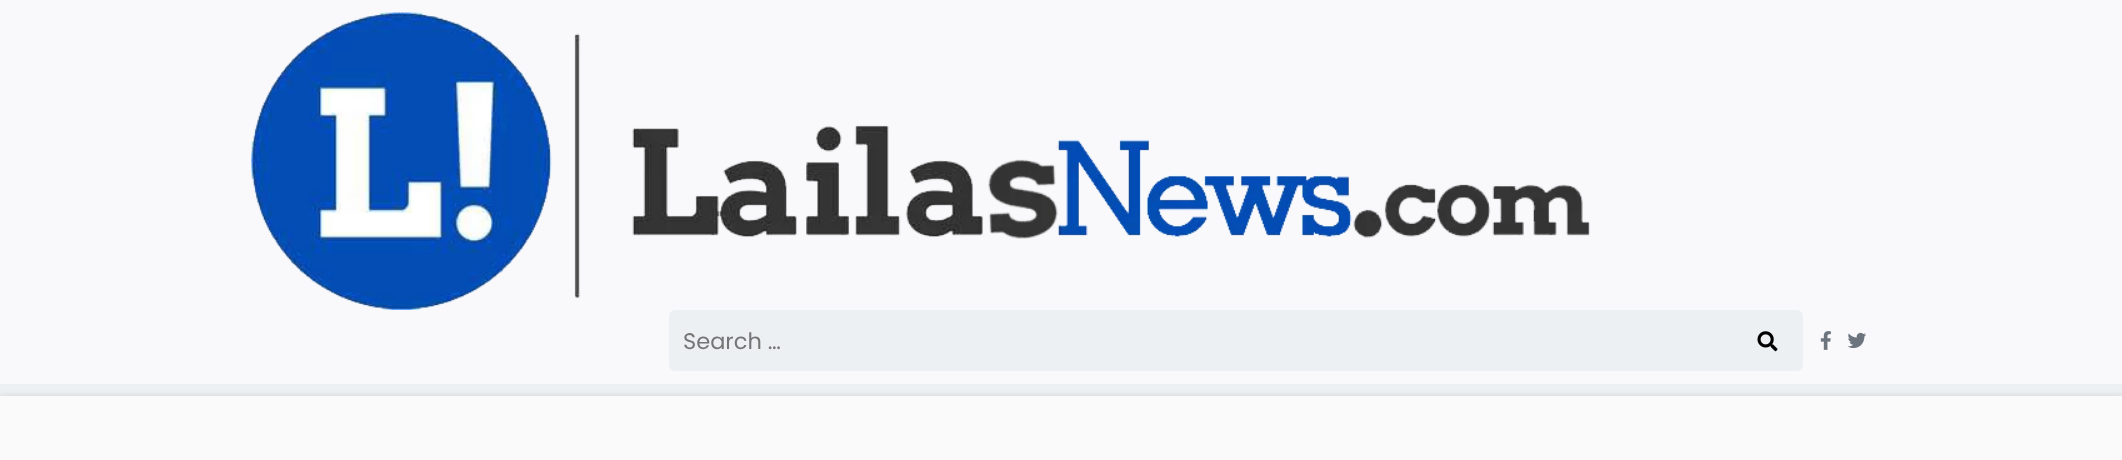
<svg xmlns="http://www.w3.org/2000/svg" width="2122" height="460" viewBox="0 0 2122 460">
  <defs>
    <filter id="blur1" x="-50%" y="-200%" width="200%" height="500%"><feGaussianBlur stdDeviation="3"/></filter>
  </defs>
  <rect width="100%" height="100%" fill="#ecf0f3"/>
  <rect x="0" y="0" width="2122" height="384" fill="#f9f9fc"/>
  <image x="251" y="12" width="1339" height="298" href="img1.png"/>
  <rect x="669" y="310" width="1134" height="61" rx="6" fill="#ecf0f3"/>
  <text x="683" y="349" font-family="Poppins" font-size="22.5" fill="#757575">Search …</text>
  <image x="1757" y="331" width="21" height="21" href="img2.png"/>
  <image x="1820" y="331" width="11" height="19" href="img3.png"/>
  <image x="1847" y="332" width="19" height="17" href="img4.png"/>
  <rect x="0" y="396" width="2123" height="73" fill="#000000" fill-opacity="0.12" filter="url(#blur1)"/>
  <rect x="0" y="396" width="2122" height="64" fill="#fafafa"/>
</svg>
